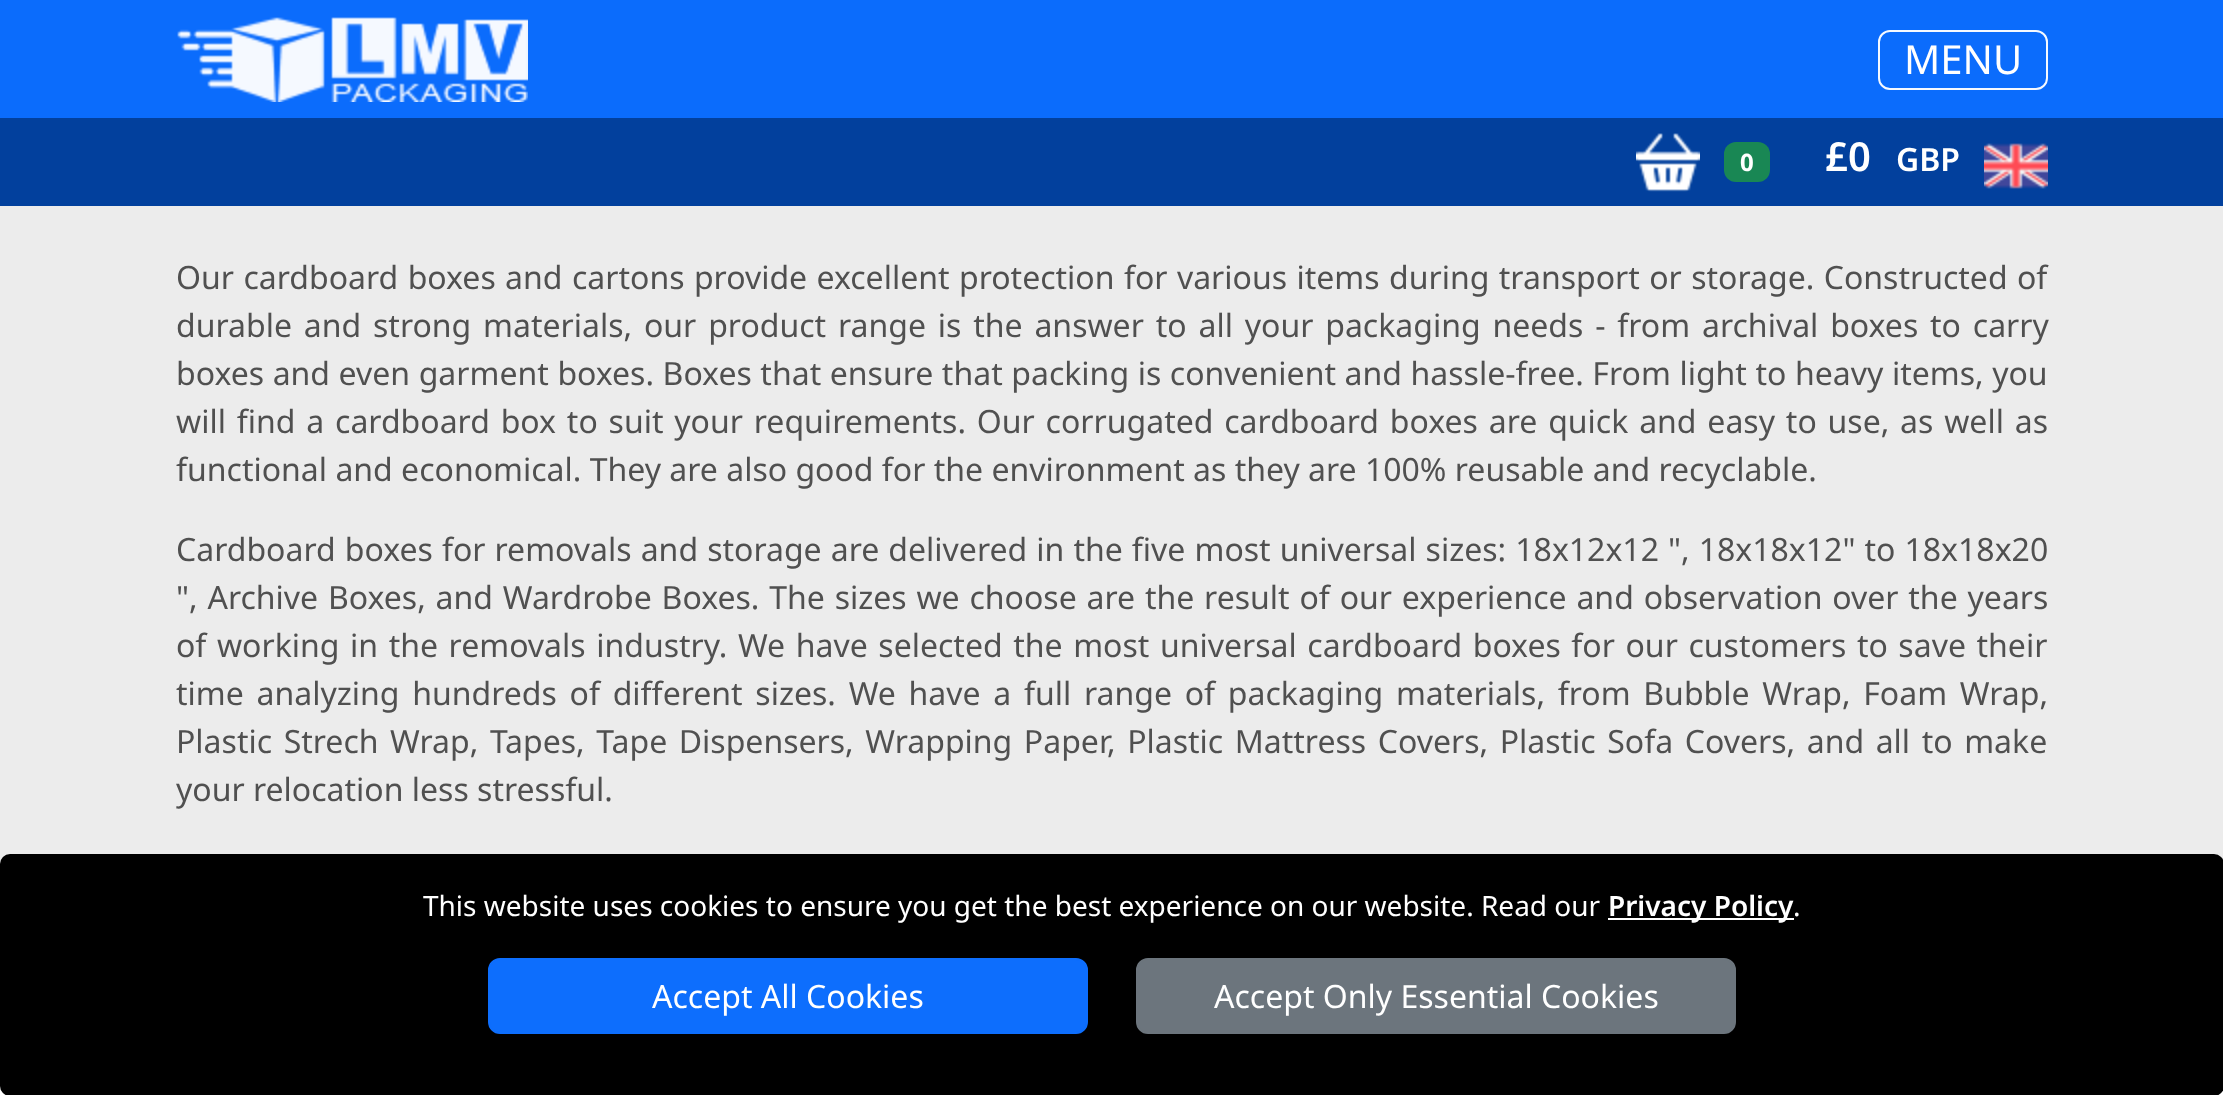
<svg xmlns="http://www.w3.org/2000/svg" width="2223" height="1095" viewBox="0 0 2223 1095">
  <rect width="100%" height="100%" fill="#ffffff"/>
  <rect x="0" y="0" width="2223" height="864" fill="#ececec"/>
  <rect x="0" y="0" width="2223" height="118" fill="#0166fc" fill-opacity="0.96"/>
  <image x="177" y="17" width="351" height="85" href="img1.png"/>
  <rect x="1879" y="31" width="168" height="58" rx="11" fill="none" stroke="#ffffff" stroke-opacity="0.96" stroke-width="2"/>
  <text x="1904" y="74" font-family="Noto Sans" font-size="40" fill="#ffffff">MENU</text>
  <rect x="0" y="118" width="2223" height="88" fill="#02409d"/>
  <image x="1636" y="133" width="64" height="59" href="img2.png"/>
  <rect x="1724" y="142" width="46" height="40" rx="12" fill="#198754"/>
  <text x="1740" y="171" font-family="Noto Sans" font-size="24" font-weight="bold" fill="#ffffff">0</text>
  <text x="1825" y="171" font-family="Noto Sans" font-size="40" font-weight="600" fill="#ffffff">£0</text>
  <text x="1896" y="171" font-family="Noto Sans" font-size="32" font-weight="600" fill="#ffffff">GBP</text>
  <image x="1984" y="143" width="64" height="46" href="img3.png"/>
  <text x="176" y="289" word-spacing="1.1" font-family="Noto Sans" font-size="32" fill="#505050">Our cardboard boxes and cartons provide excellent protection for various items during transport or storage. Constructed of</text>
  <text x="176" y="337" word-spacing="3.5" font-family="Noto Sans" font-size="32" fill="#505050">durable and strong materials, our product range is the answer to all your packaging needs - from archival boxes to carry</text>
  <text x="176" y="385" word-spacing="0.25" font-family="Noto Sans" font-size="32" fill="#505050">boxes and even garment boxes. Boxes that ensure that packing is convenient and hassle-free. From light to heavy items, you</text>
  <text x="176" y="433" word-spacing="2.5" font-family="Noto Sans" font-size="32" fill="#505050">will find a cardboard box to suit your requirements. Our corrugated cardboard boxes are quick and easy to use, as well as</text>
  <text x="176" y="481" font-family="Noto Sans" font-size="32" fill="#505050">functional and economical. They are also good for the environment as they are 100% reusable and recyclable.</text>
  <text x="176" y="561" word-spacing="0.75" font-family="Noto Sans" font-size="32" fill="#505050">Cardboard boxes for removals and storage are delivered in the five most universal sizes: 18x12x12 ", 18x18x12" to 18x18x20</text>
  <text x="176" y="609" word-spacing="1.5" font-family="Noto Sans" font-size="32" fill="#505050">", Archive Boxes, and Wardrobe Boxes. The sizes we choose are the result of our experience and observation over the years</text>
  <text x="176" y="657" word-spacing="2.25" font-family="Noto Sans" font-size="32" fill="#505050">of working in the removals industry. We have selected the most universal cardboard boxes for our customers to save their</text>
  <text x="176" y="705" word-spacing="4.4" font-family="Noto Sans" font-size="32" fill="#505050">time analyzing hundreds of different sizes. We have a full range of packaging materials, from Bubble Wrap, Foam Wrap,</text>
  <text x="176" y="753" word-spacing="3.25" font-family="Noto Sans" font-size="32" fill="#505050">Plastic Strech Wrap, Tapes, Tape Dispensers, Wrapping Paper, Plastic Mattress Covers, Plastic Sofa Covers, and all to make</text>
  <text x="176" y="801" font-family="Noto Sans" font-size="32" fill="#505050">your relocation less stressful.</text>
  <rect x="0" y="854" width="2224" height="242" rx="10" fill="#000000"/>
  <text x="423" y="916" font-family="Noto Sans" font-size="28" fill="#ffffff">This website uses cookies to ensure you get the best experience on our website. Read our</text>
  <rect x="1608" y="918" width="186" height="2" fill="#ffffff"/>
  <text x="1608" y="916" font-family="Noto Sans" font-size="28" font-weight="600" fill="#ffffff">Privacy Policy</text>
  <text x="1793" y="916" font-family="Noto Sans" font-size="28" fill="#ffffff">.</text>
  <rect x="489" y="959" width="598" height="74" rx="11" fill="#0d6efd" stroke="#0d6efd" stroke-width="2"/>
  <text x="652" y="1008" font-family="Noto Sans" font-size="32" fill="#ffffff">Accept All Cookies</text>
  <rect x="1137" y="959" width="598" height="74" rx="11" fill="#6c757d" stroke="#6c757d" stroke-width="2"/>
  <text x="1214" y="1008" font-family="Noto Sans" font-size="32" fill="#ffffff">Accept Only Essential Cookies</text>
</svg>
